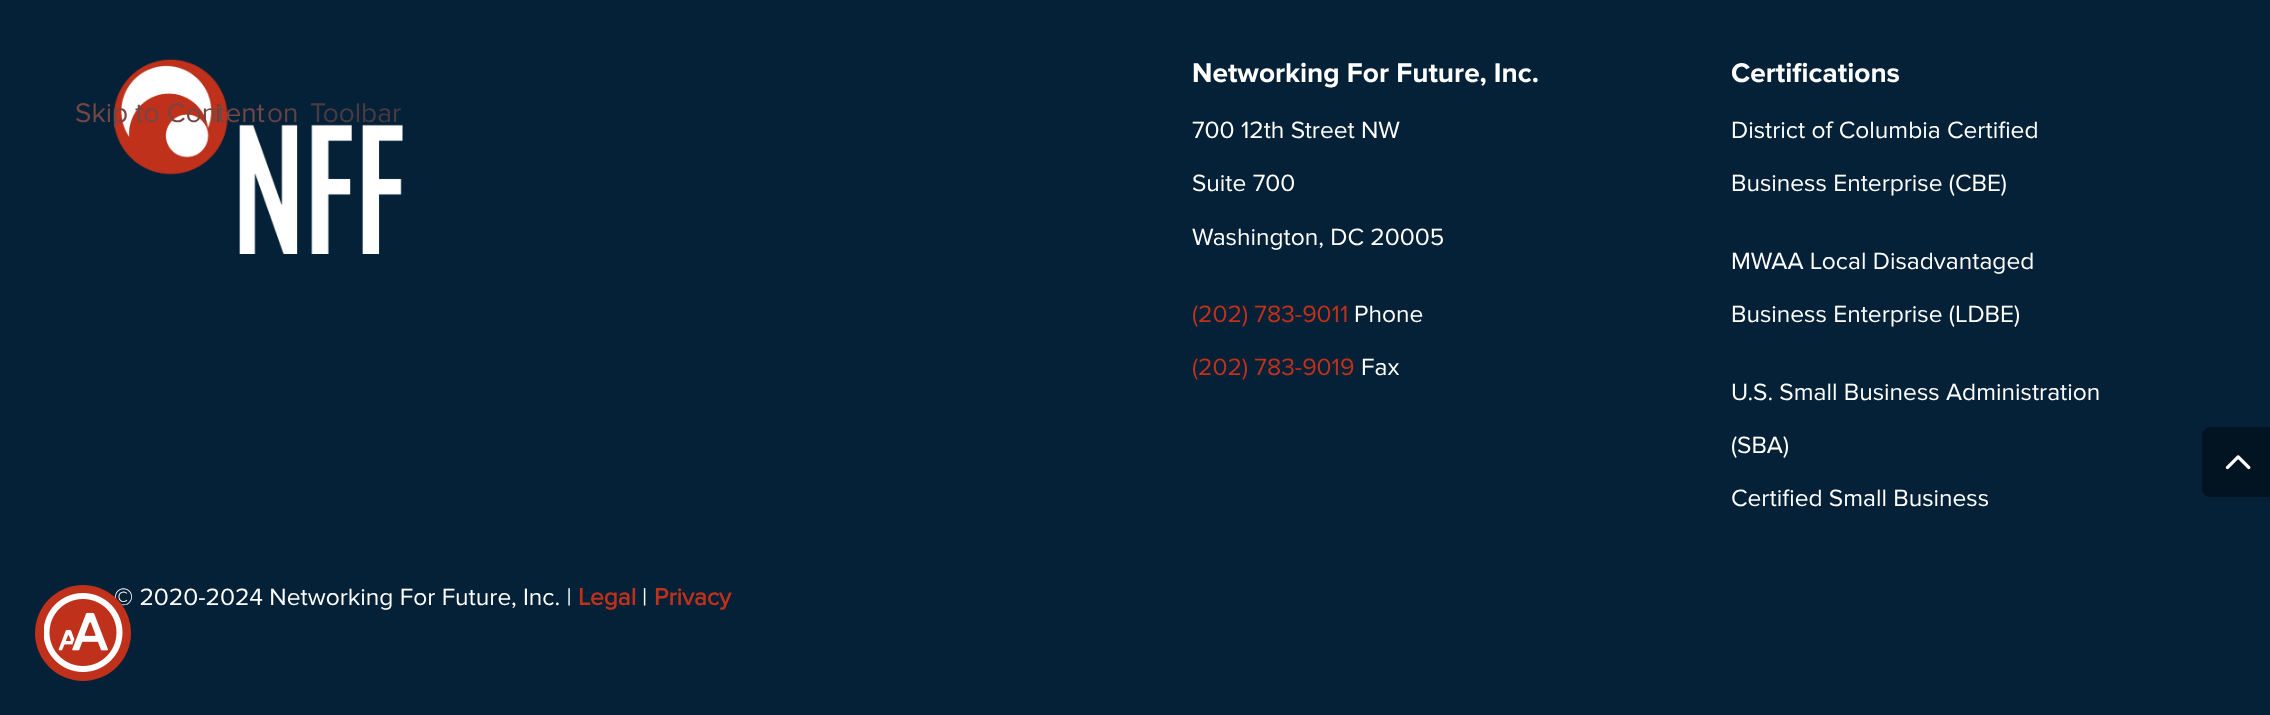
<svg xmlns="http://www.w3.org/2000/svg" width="2270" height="715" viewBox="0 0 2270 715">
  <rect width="100%" height="100%" fill="#042137"/>
  <image x="113" y="59" width="290" height="195" href="img1.png"/>
  <text x="1192" y="82" font-family="Proxima Nova" font-size="28" font-weight="bold" fill="#ffffff">Networking For Future, Inc.</text>
  <text x="1192" y="138" font-family="Proxima Nova" font-size="24.5" fill="#ffffff">700 12th Street NW</text>
  <text x="1192" y="191" font-family="Proxima Nova" font-size="24.5" fill="#ffffff">Suite 700</text>
  <text x="1192" y="245" font-family="Proxima Nova" font-size="24.5" fill="#ffffff">Washington, DC 20005</text>
  <text x="1192" y="322" font-family="Proxima Nova" font-size="24.5" fill="#bf311a">(202) 783-9011</text>
  <text x="1354" y="322" font-family="Proxima Nova" font-size="24.5" fill="#ffffff">Phone</text>
  <text x="1192" y="375" font-family="Proxima Nova" font-size="24.5" fill="#bf311a">(202) 783-9019</text>
  <text x="1361" y="375" font-family="Proxima Nova" font-size="24.5" fill="#ffffff">Fax</text>
  <text x="1731" y="82" font-family="Proxima Nova" font-size="28" font-weight="bold" fill="#ffffff">Certifications</text>
  <text x="1731" y="138" font-family="Proxima Nova" font-size="24.5" fill="#ffffff">District of Columbia Certified</text>
  <text x="1731" y="191" font-family="Proxima Nova" font-size="24.5" fill="#ffffff">Business Enterprise (CBE)</text>
  <text x="1731" y="269" font-family="Proxima Nova" font-size="24.5" fill="#ffffff">MWAA Local Disadvantaged</text>
  <text x="1731" y="322" font-family="Proxima Nova" font-size="24.5" fill="#ffffff">Business Enterprise (LDBE)</text>
  <text x="1731" y="400" font-family="Proxima Nova" font-size="24.5" fill="#ffffff">U.S. Small Business Administration</text>
  <text x="1731" y="453" font-family="Proxima Nova" font-size="24.5" fill="#ffffff">(SBA)</text>
  <text x="1731" y="506" font-family="Proxima Nova" font-size="24.5" fill="#ffffff">Certified Small Business</text>
  <text x="114" y="605" font-family="Proxima Nova" font-size="24.5" fill="#ffffff">© 2020-2024 Networking For Future, Inc. |</text>
  <text x="578" y="605" font-family="'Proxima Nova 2'" font-size="24.5" font-weight="bold" fill="#bf311a">Legal</text>
  <text x="642" y="605" font-family="Proxima Nova" font-size="24.5" fill="#ffffff">|</text>
  <text x="654" y="605" font-family="'Proxima Nova 2'" font-size="24.5" font-weight="bold" fill="#bf311a">Privacy</text>
  <text x="75" y="122" font-family="Proxima Nova" font-size="28" fill="#744747">Skip to Content</text>
  <text x="215" y="122" font-family="Proxima Nova" font-size="28" fill="#634145">i</text>
  <text x="267" y="122" font-family="Proxima Nova" font-size="28" fill="#634145">on</text>
  <text x="310" y="122" font-family="Proxima Nova" font-size="28" fill="#493b44">Toolbar</text>
  <circle cx="83" cy="633" r="48" fill="#bf311a"/>
  <image x="44" y="593" width="79" height="79" href="img2.png"/>
  <path d="M2211 427H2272V497H2211C2206 497 2202 493 2202 488V436C2202 431 2206 427 2211 427Z" fill="#021421"/>
  <image x="2225" y="455" width="26" height="15" href="img3.png"/>
</svg>
